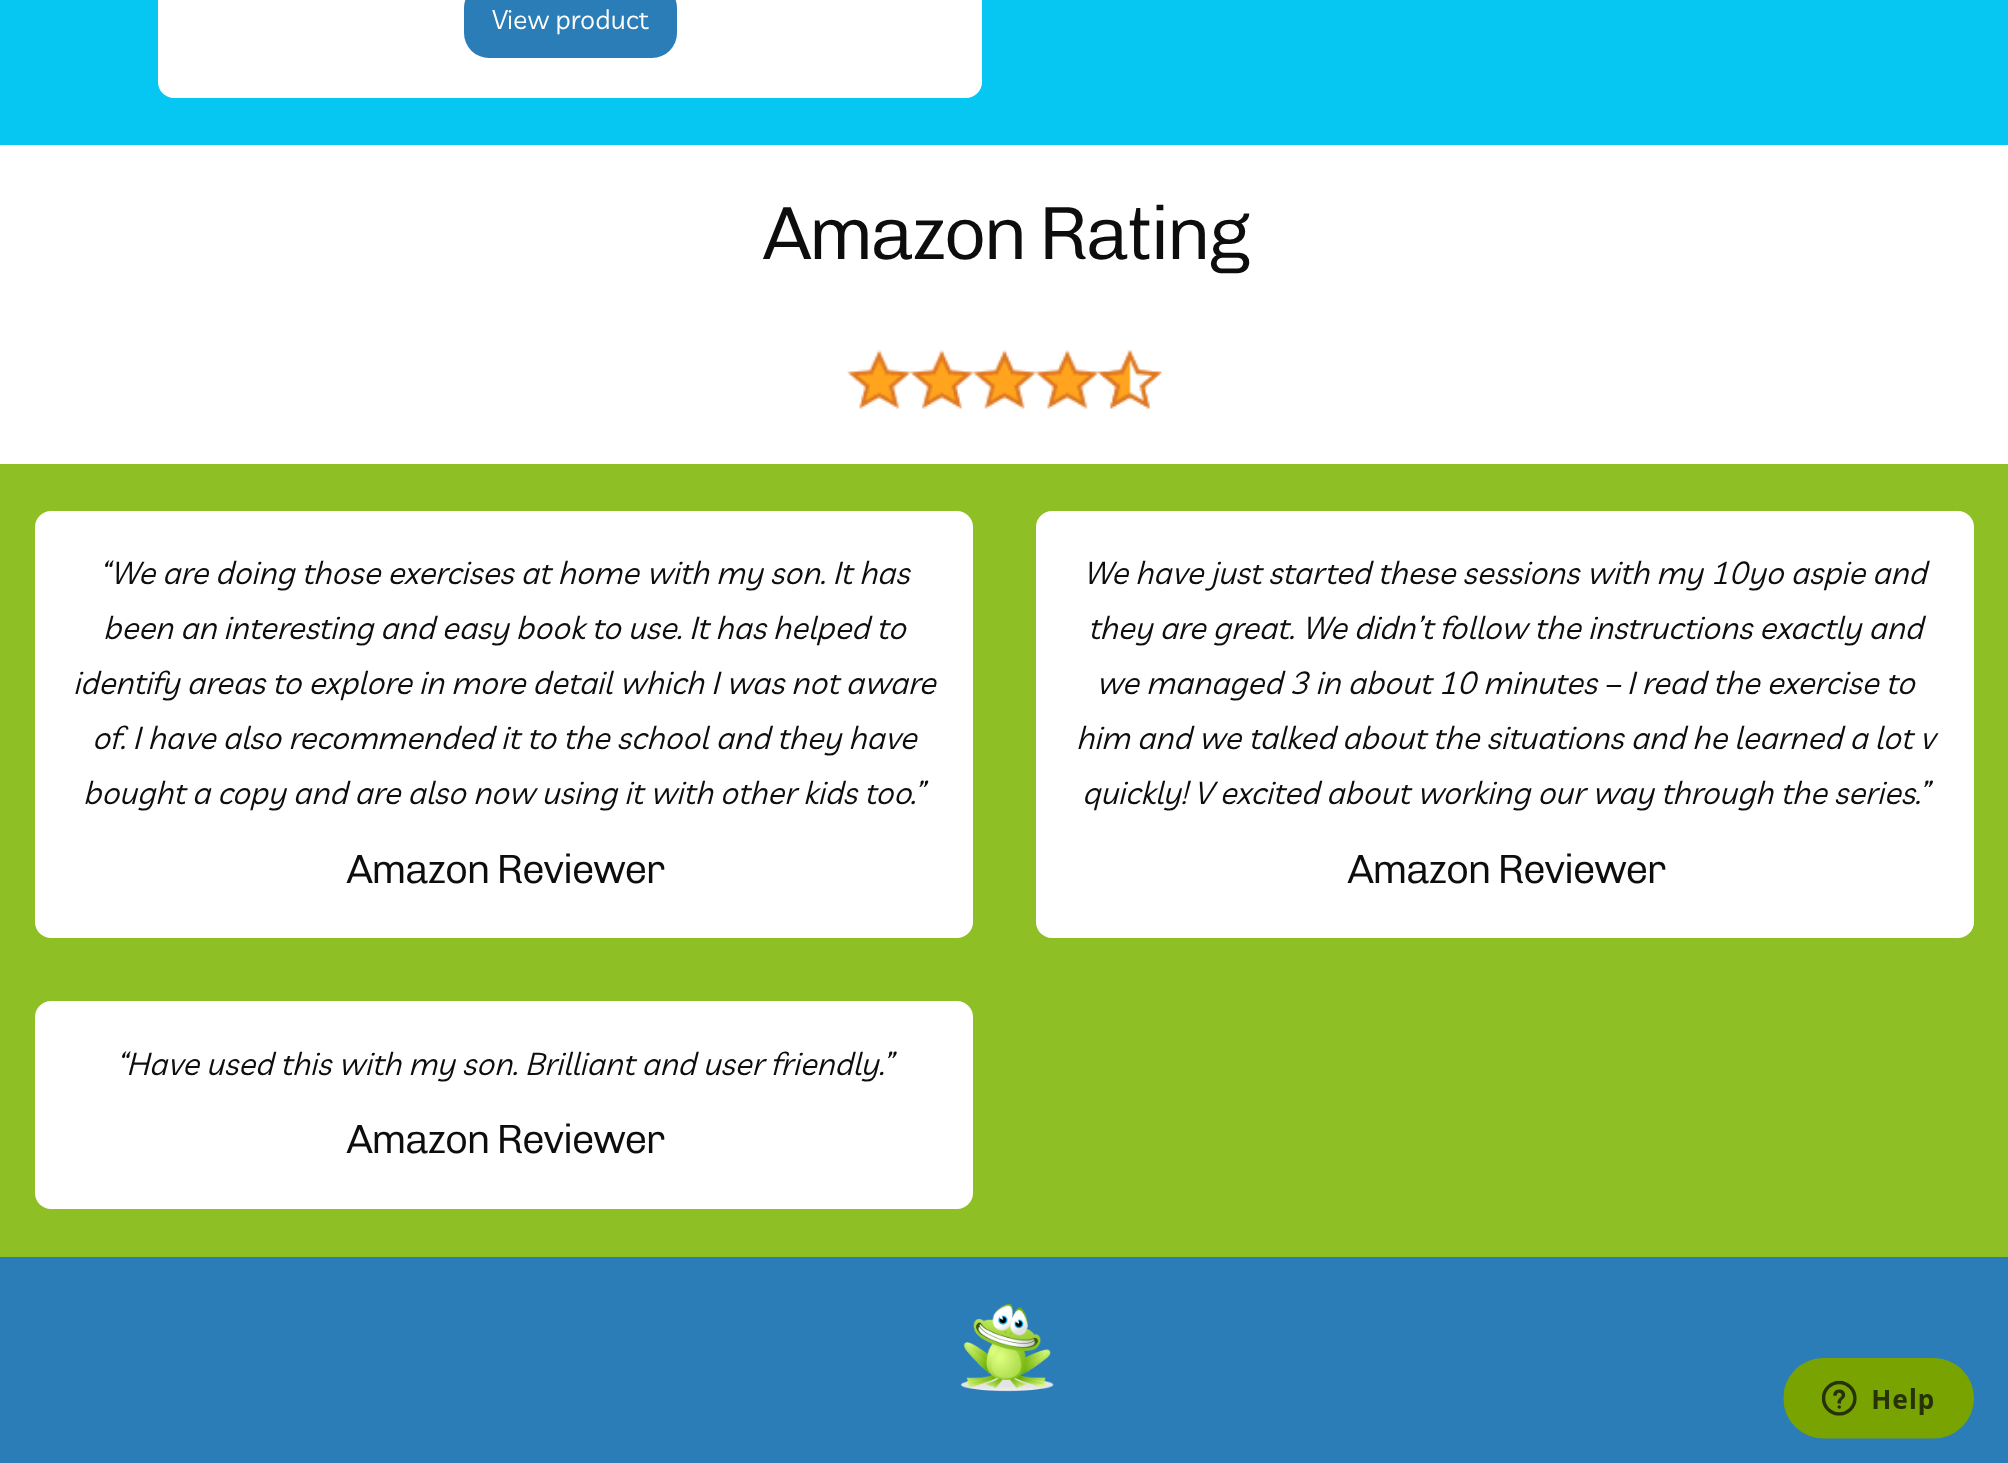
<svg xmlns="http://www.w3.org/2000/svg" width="2008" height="1463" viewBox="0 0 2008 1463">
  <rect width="100%" height="100%" fill="#ffffff"/>
  <rect x="0" y="0" width="2008" height="145" fill="#05c7f2"/>
  <rect x="158" y="-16" width="824" height="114" rx="16" fill="#ffffff"/>
  <rect x="464" y="-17" width="213" height="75" rx="25" fill="#2a7db6"/>
  <text x="492" y="29" font-family="Livvic" font-size="26.75" fill="#ffffff">View product</text>
  <text x="762" y="259" font-family="Chivo" font-size="75.5" font-weight="300" letter-spacing="-3.75" fill="#0d0d0d">Amazon Rating</text>
  <image x="847" y="349" width="315" height="60" href="img1.png"/>
  <rect x="0" y="464" width="2008" height="793" fill="#8ebf24"/>
  <rect x="35" y="511" width="938" height="427" rx="16" fill="#ffffff"/>
  <text x="99" y="584" font-family="Livvic" font-size="31.5" font-style="italic" fill="#0d0d0d">“We are doing those exercises at home with my son. It has</text>
  <text x="103" y="639" font-family="Livvic" font-size="31.5" font-style="italic" fill="#0d0d0d">been an interesting and easy book to use. It has helped to</text>
  <text x="73" y="694" font-family="Livvic" font-size="31.5" font-style="italic" fill="#0d0d0d">identify areas to explore in more detail which I was not aware</text>
  <text x="92" y="749" font-family="Livvic" font-size="31.5" font-style="italic" fill="#0d0d0d">of. I have also recommended it to the school and they have</text>
  <text x="83" y="804" font-family="Livvic" font-size="31.5" font-style="italic" fill="#0d0d0d">bought a copy and are also now using it with other kids too.”</text>
  <text x="346" y="883" font-family="Chivo" font-size="41" font-weight="300" letter-spacing="-2" fill="#0d0d0d">Amazon Reviewer</text>
  <rect x="1036" y="511" width="938" height="427" rx="16" fill="#ffffff"/>
  <text x="1083" y="584" font-family="Livvic" font-size="31.5" font-style="italic" fill="#0d0d0d">We have just started these sessions with my 10yo aspie and</text>
  <text x="1088" y="639" font-family="Livvic" font-size="31.5" font-style="italic" fill="#0d0d0d">they are great. We didn’t follow the instructions exactly and</text>
  <text x="1096" y="694" font-family="Livvic" font-size="31.5" font-style="italic" fill="#0d0d0d">we managed 3 in about 10 minutes – I read the exercise to</text>
  <text x="1076" y="749" font-family="Livvic" font-size="31.5" font-style="italic" fill="#0d0d0d">him and we talked about the situations and he learned a lot v</text>
  <text x="1082" y="804" font-family="Livvic" font-size="31.5" font-style="italic" fill="#0d0d0d">quickly! V excited about working our way through the series.”</text>
  <text x="1347" y="883" font-family="Chivo" font-size="41" font-weight="300" letter-spacing="-2" fill="#0d0d0d">Amazon Reviewer</text>
  <rect x="35" y="1001" width="938" height="208" rx="16" fill="#ffffff"/>
  <text x="116" y="1075" font-family="Livvic" font-size="31.5" font-style="italic" fill="#0d0d0d">“Have used this with my son. Brilliant and user friendly.”</text>
  <text x="346" y="1153" font-family="Chivo" font-size="41" font-weight="300" letter-spacing="-2" fill="#0d0d0d">Amazon Reviewer</text>
  <rect x="0" y="1257" width="2008" height="206" fill="#2a7db6"/>
  <image x="960" y="1304" width="106" height="88" href="img2.png"/>
  <image x="1783" y="1358" width="191" height="81" href="img3.png"/>
</svg>
